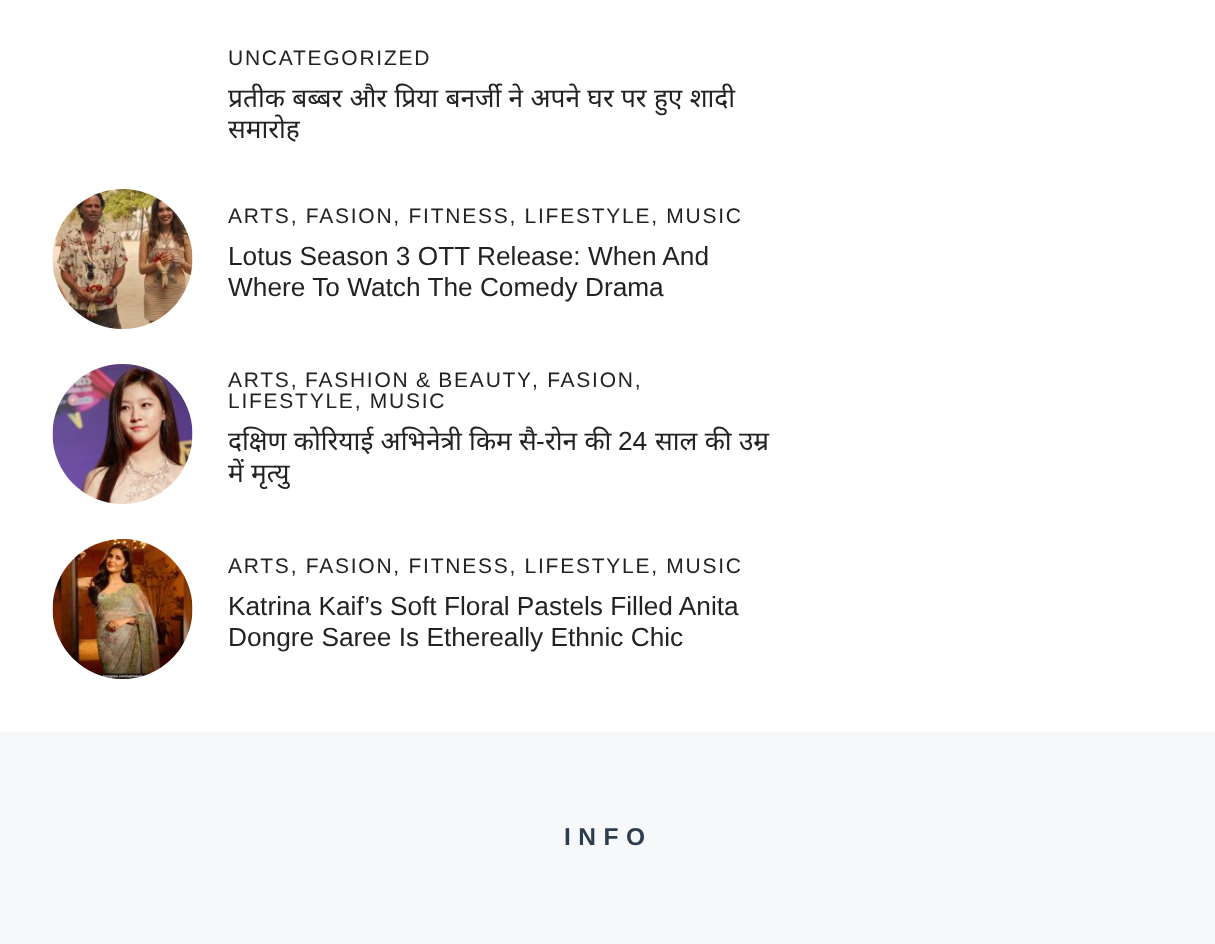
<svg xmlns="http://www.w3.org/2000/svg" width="1215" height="944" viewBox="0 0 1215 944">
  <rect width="100%" height="100%" fill="#ffffff"/>
  <text x="228" y="65" font-family="Liberation Sans" font-size="21" letter-spacing="1.75" fill="#222222">UNCATEGORIZED</text>
  <text x="228" y="107" word-spacing="0.5" font-family="Noto Sans" font-size="26.25" fill="#222222">प्रतीक बब्बर और प्रिया बनर्जी ने अपने घर पर हुए शादी</text>
  <text x="228" y="138" font-family="Noto Sans" font-size="26.25" fill="#222222">समारोह</text>
  <image x="52" y="189" width="141" height="140" href="img1.png"/>
  <text x="228" y="223" font-family="Liberation Sans" font-size="21" letter-spacing="1.75" fill="#222222">ARTS, FASION, FITNESS, LIFESTYLE, MUSIC</text>
  <text x="228" y="265" font-family="Liberation Sans" font-size="26.25" fill="#222222">Lotus Season 3 OTT Release: When And</text>
  <text x="228" y="296" font-family="Liberation Sans" font-size="26.25" fill="#222222">Where To Watch The Comedy Drama</text>
  <image x="52" y="364" width="141" height="140" href="img2.png"/>
  <text x="228" y="387" font-family="Liberation Sans" font-size="21" letter-spacing="1.75" fill="#222222">ARTS,</text>
  <text x="305" y="387" word-spacing="-1" font-family="Liberation Sans" font-size="21" letter-spacing="1.75" fill="#222222">FASHION &amp; BEAUTY</text>
  <text x="532" y="387" font-family="Liberation Sans" font-size="21" letter-spacing="1.75" fill="#222222">, FASION,</text>
  <text x="228" y="408" font-family="Liberation Sans" font-size="21" letter-spacing="1.75" fill="#222222">LIFESTYLE, MUSIC</text>
  <text x="228" y="450" word-spacing="0.5" font-family="Noto Sans" font-size="26.25" fill="#222222">दक्षिण कोरियाई अभिनेत्री किम सै</text>
  <text x="536" y="450" font-family="Liberation Sans" font-size="26.25" fill="#222222">-</text>
  <text x="545" y="450" word-spacing="0.5" font-family="Noto Sans" font-size="26.25" fill="#222222">रोन की</text>
  <text x="618" y="450" font-family="Liberation Sans" font-size="26.25" fill="#222222">24</text>
  <text x="655" y="450" word-spacing="0.5" font-family="Noto Sans" font-size="26.25" fill="#222222">साल की उम्र</text>
  <text x="228" y="482" word-spacing="0.5" font-family="Noto Sans" font-size="26.25" fill="#222222">में मृत्यु</text>
  <image x="52" y="539" width="141" height="140" href="img3.png"/>
  <text x="228" y="573" font-family="Liberation Sans" font-size="21" letter-spacing="1.75" fill="#222222">ARTS, FASION, FITNESS, LIFESTYLE, MUSIC</text>
  <text x="228" y="615" font-family="Liberation Sans" font-size="26.25" fill="#222222">Katrina Kaif’s Soft Floral Pastels Filled Anita</text>
  <text x="228" y="646" font-family="Liberation Sans" font-size="26.25" fill="#222222">Dongre Saree Is Ethereally Ethnic Chic</text>
  <rect x="0" y="732" width="1215" height="212" fill="#f7f8f9"/>
  <text x="564" y="845" font-family="Liberation Sans" font-size="24.5" font-weight="bold" letter-spacing="7.5" fill="#2e3d4d">INFO</text>
</svg>
